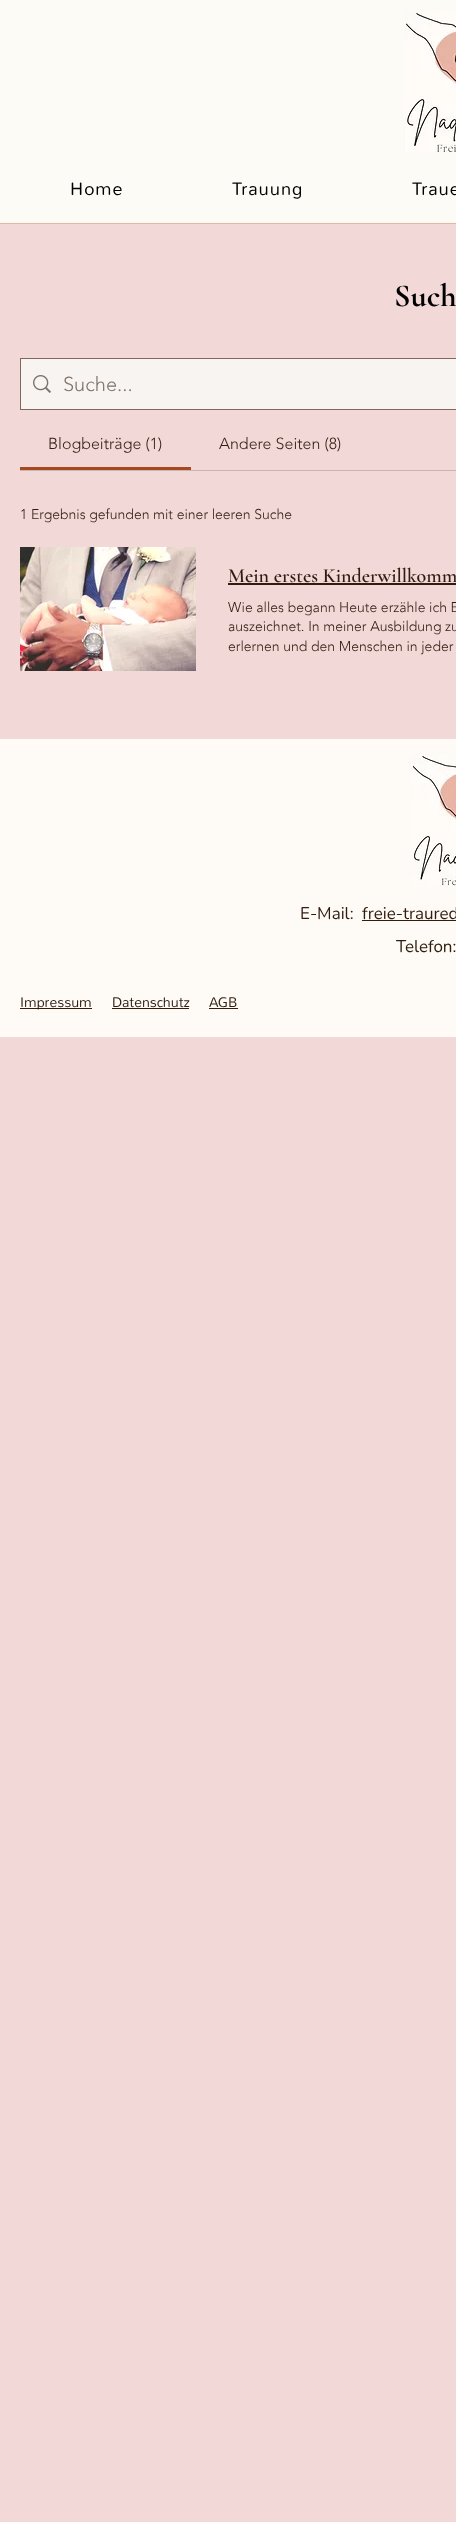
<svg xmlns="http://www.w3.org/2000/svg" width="456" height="2522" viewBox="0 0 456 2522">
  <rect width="100%" height="100%" fill="#f2d9d8"/>
  <rect x="0" y="223" width="456" height="1" fill="#e8b4a3"/>
  <rect x="0" y="0" width="456" height="223" fill="#fdfbf5"/>
  <image x="404" y="12" width="52" height="140" href="img1.png"/>
  <text x="70" y="195" font-family="Nunito" font-size="18" font-weight="300" letter-spacing="1" fill="#000000">Home</text>
  <text x="232" y="195" font-family="Nunito" font-size="18" font-weight="300" letter-spacing="1" fill="#000000">Trauung</text>
  <text x="412" y="195" font-family="Nunito" font-size="18" font-weight="300" letter-spacing="1" fill="#000000">Traue</text>
  <text x="394" y="306" font-family="Cormorant Garamond" font-size="32" font-weight="bold" fill="#000000">Such</text>
  <rect x="20.5" y="358.5" width="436" height="51" fill="#f8f4f1" stroke="#7e6860"/>
  <image x="33" y="375" width="18" height="18" href="img2.png"/>
  <text x="63" y="391" font-family="'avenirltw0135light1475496'" font-size="20" font-weight="300" fill="#80736a">Suche...</text>
  <rect x="20" y="470" width="436" height="1" fill="#cbb3b0"/>
  <rect x="20" y="467" width="171" height="3" fill="#a34a21"/>
  <text x="48" y="449" font-family="'avenirltw0135light1475496'" font-size="16" font-weight="300" fill="#301d10">Blogbeiträge (1)</text>
  <text x="219" y="449" font-family="'avenirltw0135light1475496'" font-size="16" font-weight="300" fill="#301d10">Andere Seiten (8)</text>
  <text x="20" y="519" font-family="'avenirltw0135light1475496'" font-size="14" font-weight="300" fill="#301d10">1 Ergebnis gefunden mit einer leeren Suche</text>
  <image x="20" y="547" width="176" height="124" href="img3.png"/>
  <text x="228" y="582" font-family="Cormorant Garamond" font-size="20" font-weight="600" fill="#301d10">Mein erstes Kinderwillkomm</text>
  <rect x="228" y="583" width="228" height="2" fill="#301d10"/>
  <text x="228" y="612" font-family="'avenirltw0135light1475496'" font-size="14" font-weight="300" fill="#301d10">Wie alles begann Heute erzähle ich E</text>
  <text x="228" y="631" font-family="'avenirltw0135light1475496'" font-size="14" font-weight="300" fill="#301d10">auszeichnet. In meiner Ausbildung zu</text>
  <text x="228" y="651" font-family="'avenirltw0135light1475496'" font-size="14" font-weight="300" fill="#301d10">erlernen und den Menschen in jeder</text>
  <rect x="0" y="739" width="456" height="298" fill="#fefbf6"/>
  <image x="411" y="755" width="45" height="132" href="img4.png"/>
  <text x="300" y="919" font-family="Nunito" font-size="17" fill="#301d10">E-Mail:</text>
  <text x="362" y="919" font-family="Nunito" font-size="17" fill="#301d10">freie-traured</text>
  <rect x="362" y="920" width="94" height="1" fill="#301d10"/>
  <text x="396" y="952" font-family="Nunito" font-size="17" fill="#301d10">Telefon:</text>
  <rect x="20" y="1008" width="72" height="1" fill="#301d10"/>
  <text x="20" y="1007" font-family="Nunito" font-size="14" font-weight="300" fill="#301d10">Impressum</text>
  <text x="112" y="1007" font-family="Nunito" font-size="14" font-weight="300" fill="#301d10">Datenschutz</text>
  <rect x="112" y="1008" width="77" height="1" fill="#301d10"/>
  <text x="209" y="1007" font-family="Nunito" font-size="14" font-weight="300" fill="#301d10">AGB</text>
  <rect x="209" y="1008" width="29" height="1" fill="#301d10"/>
</svg>
